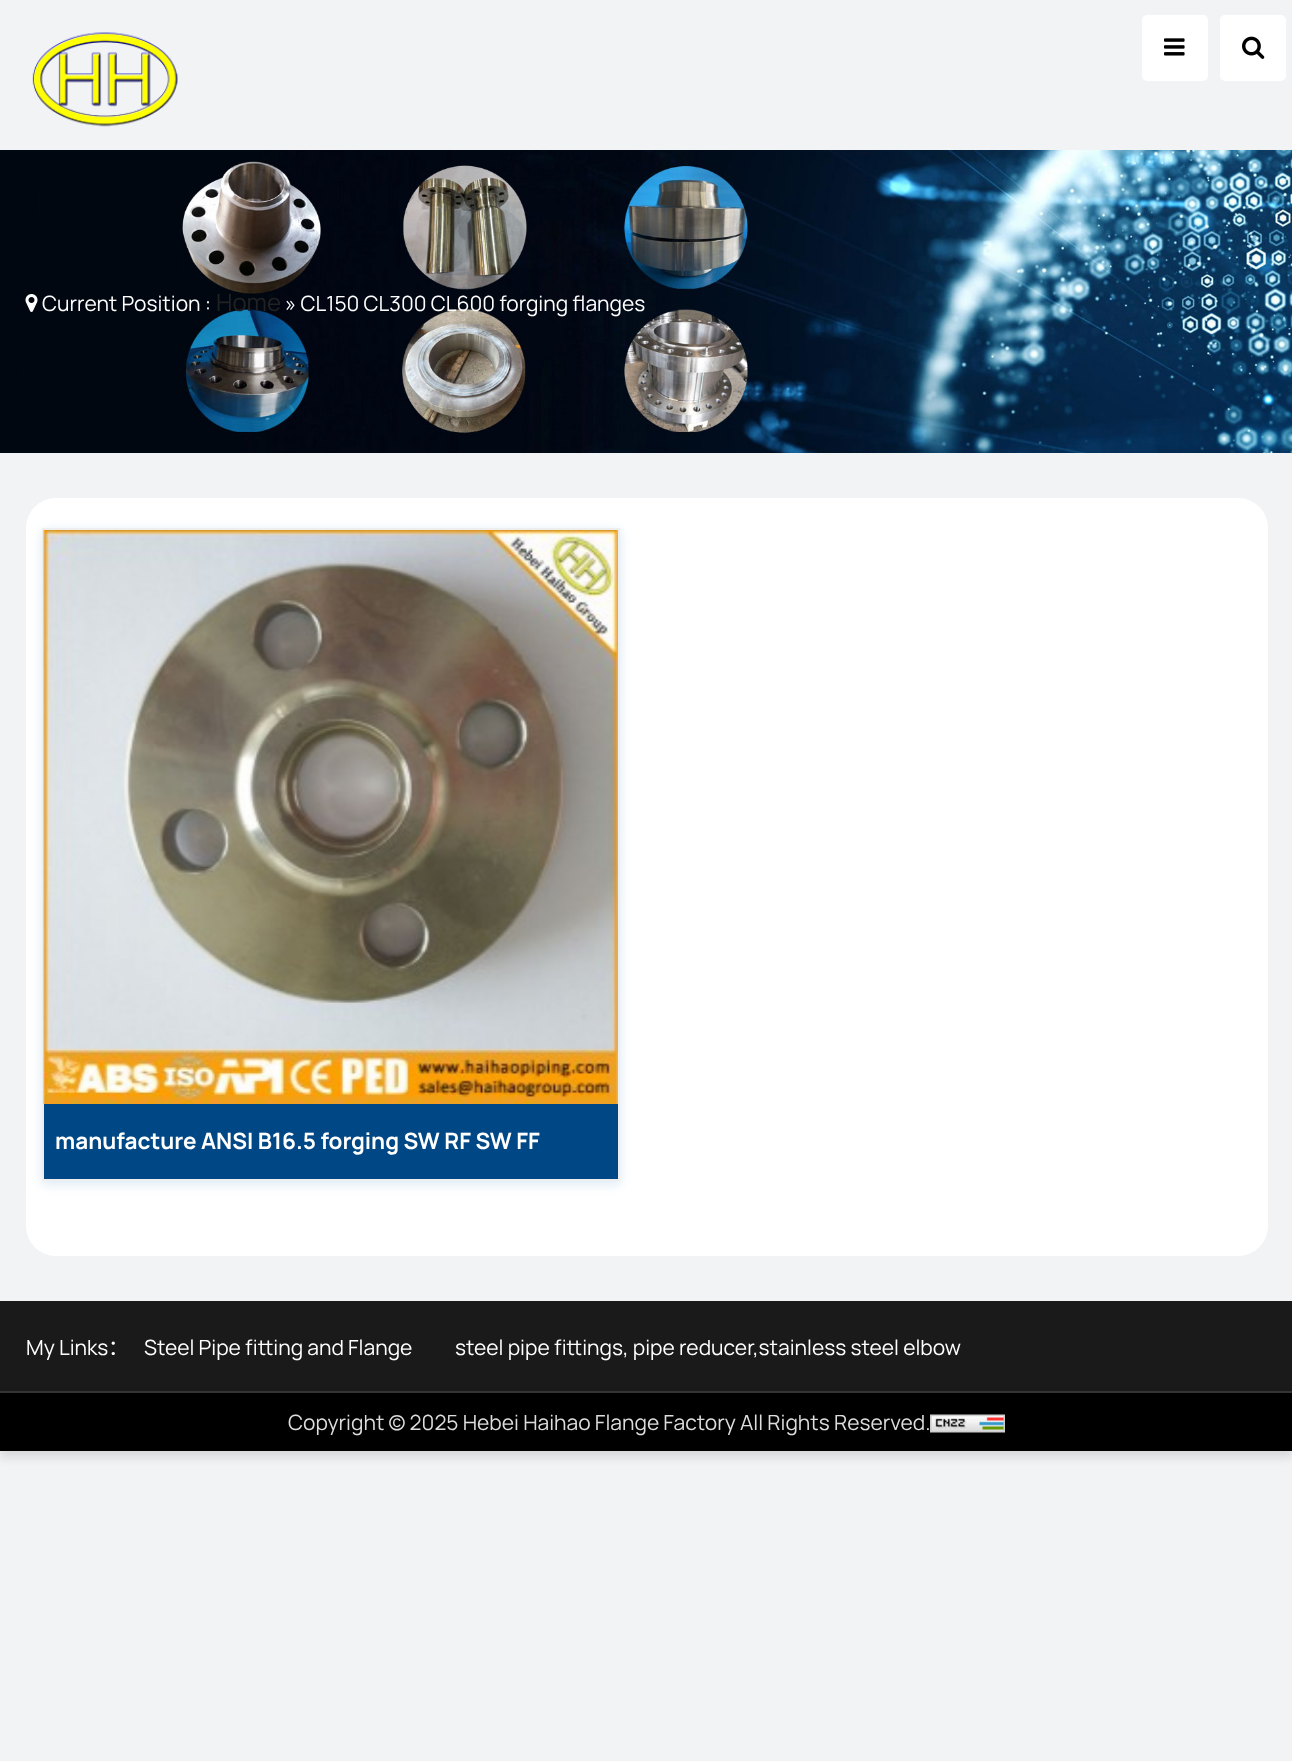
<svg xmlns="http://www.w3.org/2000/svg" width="1292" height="1761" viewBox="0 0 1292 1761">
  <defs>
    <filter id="blur1" x="-50%" y="-200%" width="200%" height="500%"><feGaussianBlur stdDeviation="6"/></filter>
    <filter id="blur2" x="-50%" y="-200%" width="200%" height="500%"><feGaussianBlur stdDeviation="4"/></filter>
  </defs>
  <rect width="100%" height="100%" fill="#f1f3f5"/>
  <image x="32" y="32" width="146" height="95" href="img1.png"/>
  <rect x="1143" y="16" width="64" height="64" rx="4" fill="#ffffff" stroke="#ffffff" stroke-width="2"/>
  <image x="1164" y="38" width="21" height="18" href="img2.png"/>
  <rect x="1221" y="16" width="64" height="64" rx="4" fill="#ffffff" stroke="#ffffff" stroke-width="2"/>
  <image x="1242" y="36" width="23" height="23" href="img3.png"/>
  <image x="0" y="150" width="1292" height="303" href="img4.png"/>
  <image x="25" y="294" width="13" height="18" href="img5.png"/>
  <text x="42" y="311" font-family="Manrope" font-size="21" fill="#ffffff">Current Position :</text>
  <text x="216" y="311" font-family="Manrope" font-size="24" fill="#222222">Home</text>
  <text x="285" y="311" font-family="Manrope" font-size="21" fill="#ffffff">» CL150 CL300 CL600 forging flanges</text>
  <rect x="26" y="498" width="1242" height="758" rx="30" fill="#ffffff"/>
  <rect x="42" y="531" width="578" height="653" fill="#dae8f4" filter="url(#blur1)"/>
  <rect x="43" y="529" width="576" height="651" fill="none" stroke="#eeeeee" stroke-width="2"/>
  <image x="43" y="530" width="575" height="574" href="img6.png"/>
  <rect x="44" y="1104" width="574" height="75" fill="#004785"/>
  <text x="55" y="1149" font-family="Manrope" font-size="22.5" font-weight="bold" fill="#ffffff">manufacture ANSI B16.5 forging SW RF SW FF</text>
  <rect x="0" y="1308" width="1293" height="150" fill="#000000" fill-opacity="0.1" filter="url(#blur2)"/>
  <rect x="0" y="1301" width="1292" height="90" fill="#1a1a1a"/>
  <text x="26" y="1355" font-family="Manrope" font-size="21" fill="#ffffff">My Links</text>
  <text x="108" y="1355" font-family="Noto Sans CJK SC" font-size="21" fill="#ffffff">：</text>
  <text x="144" y="1355" font-family="Manrope" font-size="21" fill="#ffffff">Steel Pipe fitting and Flange</text>
  <text x="455" y="1355" font-family="Manrope" font-size="21" fill="#ffffff">steel pipe fittings, pipe reducer,stainless steel elbow</text>
  <rect x="0" y="1393" width="1292" height="58" fill="#000000"/>
  <rect x="0" y="1391" width="1292" height="2" fill="#343434"/>
  <text x="288" y="1430" font-family="Manrope" font-size="21" fill="#dddddd">Copyright © 2025 Hebei Haihao Flange Factory All Rights Reserved.</text>
  <image x="930" y="1414" width="75" height="19" href="img7.png"/>
</svg>
